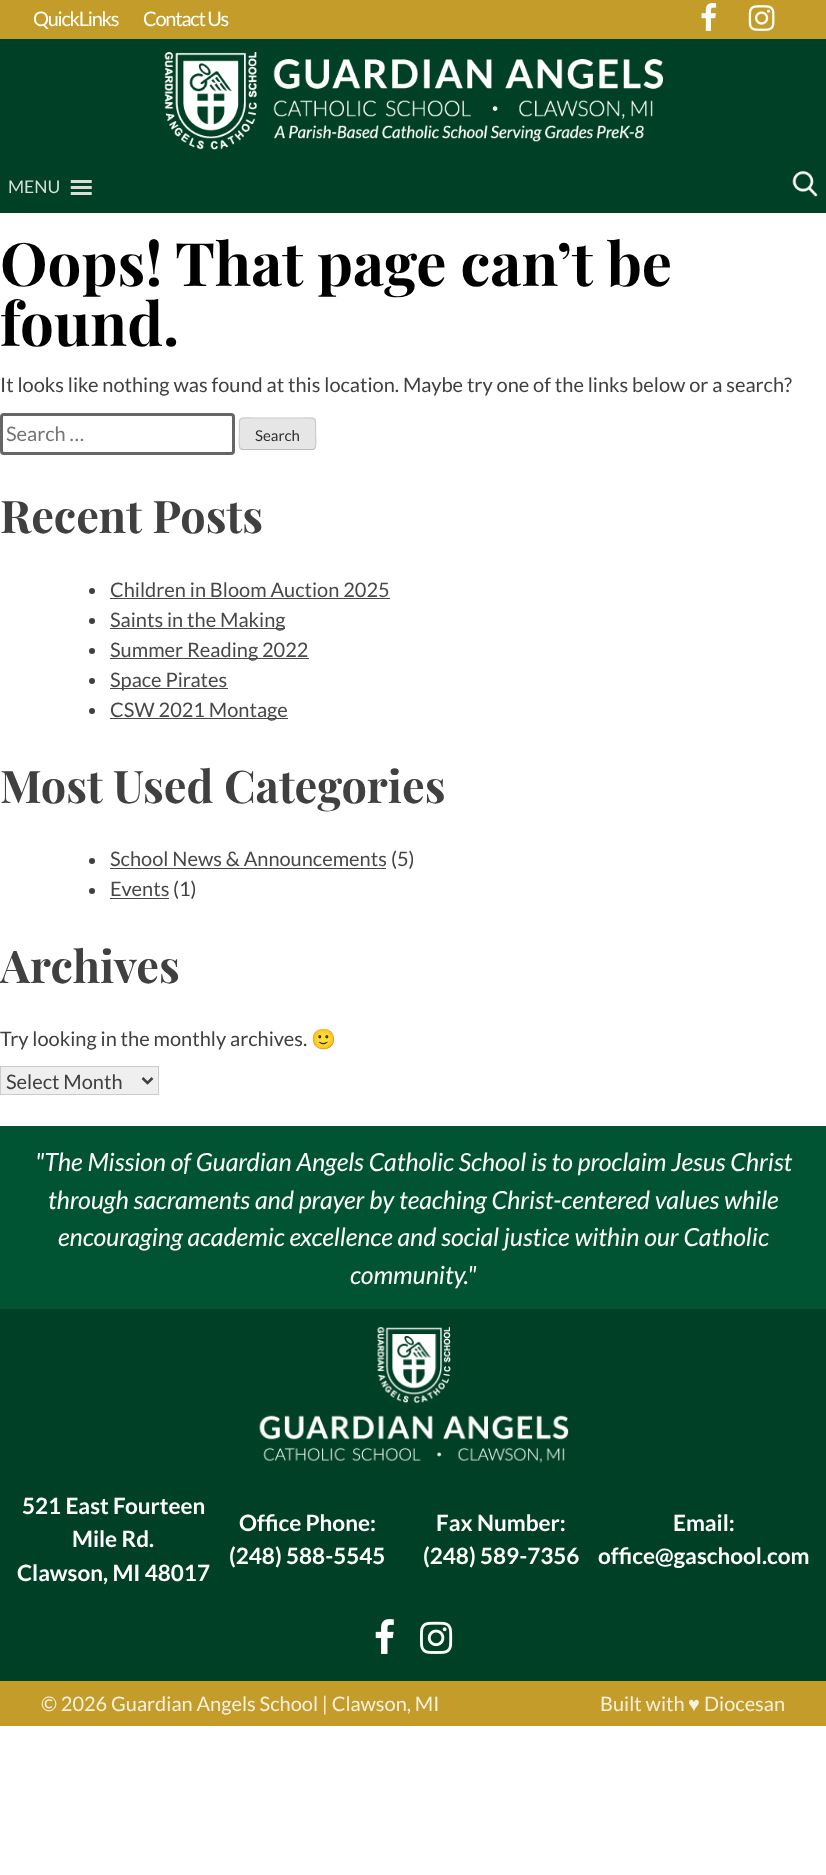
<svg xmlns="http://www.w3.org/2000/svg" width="826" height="1875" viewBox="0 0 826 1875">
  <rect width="100%" height="100%" fill="#ffffff"/>
  <rect x="0" y="0" width="826" height="39" fill="#c39c29"/>
  <text x="33" y="26" font-family="Lato" font-size="20" letter-spacing="-1.25" fill="#ffffff">QuickLinks</text>
  <text x="143" y="26" font-family="Lato" font-size="20" letter-spacing="-1.25" fill="#ffffff">Contact Us</text>
  <image x="701" y="3" width="16" height="28" href="img1.png"/>
  <image x="748" y="5" width="27" height="26" href="img2.png"/>
  <rect x="0" y="39" width="826" height="174" fill="#004027"/>
  <image x="164" y="52" width="499" height="98" href="img3.png"/>
  <text x="8" y="193" font-family="Lato" font-size="17.5" fill="#dddddd">MENU</text>
  <image x="70" y="180" width="22" height="15" href="img4.png"/>
  <image x="792" y="171" width="26" height="26" href="img5.png"/>
  <text x="0" y="286" font-family="Playfair Display" font-size="60" font-weight="bold" fill="#000000">Oops! That page can’t be</text>
  <text x="0" y="346" font-family="Playfair Display" font-size="60" font-weight="bold" fill="#000000">found.</text>
  <text x="0" y="392" font-family="Lato" font-size="20" fill="#404040">It looks like nothing was found at this location. Maybe try one of the links below or a search?</text>
  <rect x="1.5" y="414.5" width="232" height="39" rx="2.5" fill="none" stroke="#666666" stroke-width="3"/>
  <text x="6" y="441" font-family="Lato" font-size="20" fill="#757575">Search …</text>
  <rect x="239" y="418" width="77" height="32" rx="4" fill="#e6e6e6"/>
  <path d="M314.5 448.5L313 449.5H242L240.5 448.5" fill="none" stroke="#bbbbbb" stroke-width="1.2"/>
  <path d="M240.5 448.5C238 446.5 239.5 436.5 239.5 434C239.5 416 236.5 418 254 418H301C318.5 418 315.5 416 315.5 434C315.5 436.5 317 446.5 314.5 448.5" fill="none" stroke="#cccccc" stroke-width="1.2"/>
  <text x="255" y="441" font-family="Lato" font-size="15" fill="#2e2e2e">Search</text>
  <text x="0" y="533" font-family="Playfair Display" font-size="45" font-weight="bold" fill="#404040">Recent Posts</text>
  <circle cx="92" cy="591" r="3" fill="#404040"/>
  <text x="110" y="597" font-family="Lato" font-size="20" fill="#484848">Children in Bloom Auction 2025</text>
  <rect x="110" y="598" width="280" height="1" fill="#484848"/>
  <circle cx="92" cy="621" r="3" fill="#404040"/>
  <rect x="110" y="628" width="175" height="1" fill="#484848"/>
  <text x="110" y="627" font-family="Lato" font-size="20" fill="#484848">Saints in the Making</text>
  <circle cx="92" cy="651" r="3" fill="#404040"/>
  <rect x="110" y="658" width="199" height="1" fill="#484848"/>
  <text x="110" y="657" font-family="Lato" font-size="20" fill="#484848">Summer Reading 2022</text>
  <circle cx="92" cy="681" r="3" fill="#404040"/>
  <rect x="110" y="688" width="118" height="1" fill="#484848"/>
  <text x="110" y="687" font-family="Lato" font-size="20" fill="#484848">Space Pirates</text>
  <circle cx="92" cy="711" r="3" fill="#404040"/>
  <rect x="110" y="718" width="178" height="1" fill="#484848"/>
  <text x="110" y="717" font-family="Lato" font-size="20" fill="#484848">CSW 2021 Montage</text>
  <text x="0" y="803" font-family="Playfair Display" font-size="45" font-weight="bold" fill="#404040">Most Used Categories</text>
  <circle cx="92" cy="861" r="3" fill="#404040"/>
  <text x="110" y="866" font-family="Lato" font-size="20" fill="#484848">School News &amp; Announcements</text>
  <rect x="110" y="868" width="276" height="1" fill="#484848"/>
  <text x="391" y="866" font-family="Lato" font-size="20" fill="#404040">(5)</text>
  <circle cx="92" cy="891" r="3" fill="#404040"/>
  <text x="110" y="896" font-family="Lato" font-size="20" fill="#484848">Events</text>
  <rect x="110" y="898" width="59" height="1" fill="#484848"/>
  <text x="173" y="896" font-family="Lato" font-size="20" fill="#404040">(1)</text>
  <text x="0" y="983" font-family="Playfair Display" font-size="45" font-weight="bold" fill="#404040">Archives</text>
  <text x="0" y="1046" font-family="Lato" font-size="20" fill="#404040">Try looking in the monthly archives.</text>
  <text x="311" y="1046" font-family="Noto Color Emoji" font-size="20" fill="#404040">🙂</text>
  <rect x="0.5" y="1066.5" width="158" height="28" fill="#efefef" stroke="#cccccc"/>
  <path d="M142.5 1078L147.5 1083L152.5 1078" fill="none" stroke="#404040" stroke-width="2.5"/>
  <text x="6" y="1089" font-family="Lato" font-size="20" fill="#404040">Select Month</text>
  <rect x="0" y="1126" width="826" height="183" fill="#005433"/>
  <text x="35" y="1171" font-family="Lato" font-size="25" font-style="italic" fill="#ffffff">"The Mission of Guardian Angels Catholic School is to proclaim Jesus Christ</text>
  <text x="48" y="1209" font-family="Lato" font-size="25" font-style="italic" fill="#ffffff">through sacraments and prayer by teaching Christ-centered values while</text>
  <text x="58" y="1246" font-family="Lato" font-size="25" font-style="italic" fill="#ffffff">encouraging academic excellence and social justice within our Catholic</text>
  <text x="350" y="1284" font-family="Lato" font-size="25" font-style="italic" fill="#ffffff">community."</text>
  <rect x="0" y="1309" width="826" height="372" fill="#004027"/>
  <image x="259" y="1326" width="310" height="137" href="img6.png"/>
  <text x="22" y="1514" font-family="Lato" font-size="22.5" font-weight="bold" fill="#ffffff">521 East Fourteen</text>
  <text x="72" y="1547" font-family="Lato" font-size="22.5" font-weight="bold" fill="#ffffff">Mile Rd.</text>
  <text x="17" y="1581" font-family="Lato" font-size="22.5" font-weight="bold" fill="#ffffff">Clawson, MI 48017</text>
  <text x="239" y="1531" font-family="Lato" font-size="22.5" font-weight="bold" fill="#ffffff">Office Phone:</text>
  <text x="229" y="1564" font-family="Lato" font-size="22.5" font-weight="bold" fill="#ffffff">(248) 588-5545</text>
  <text x="436" y="1531" font-family="Lato" font-size="22.5" font-weight="bold" fill="#ffffff">Fax Number:</text>
  <text x="423" y="1564" font-family="Lato" font-size="22.5" font-weight="bold" fill="#ffffff">(248) 589-7356</text>
  <text x="673" y="1531" font-family="Lato" font-size="22.5" font-weight="bold" fill="#ffffff">Email:</text>
  <text x="598" y="1564" font-family="Lato" font-size="22.5" font-weight="bold" fill="#ffffff">office@gaschool.com</text>
  <image x="375" y="1619" width="19" height="35" href="img7.png"/>
  <image x="420" y="1621" width="33" height="33" href="img8.png"/>
  <rect x="0" y="1681" width="826" height="45" fill="#c39c29"/>
  <text x="41" y="1711" font-family="Lato" font-size="20" fill="#f6f0df">© 2026 Guardian Angels School | Clawson, MI</text>
  <text x="600" y="1711" font-family="Lato" font-size="20" fill="#f6f0df">Built with</text>
  <text x="688" y="1711" font-family="Liberation Sans" font-size="20" fill="#f6f0df">♥</text>
  <text x="704" y="1711" font-family="Lato" font-size="20" fill="#f6f0df">Diocesan</text>
</svg>
